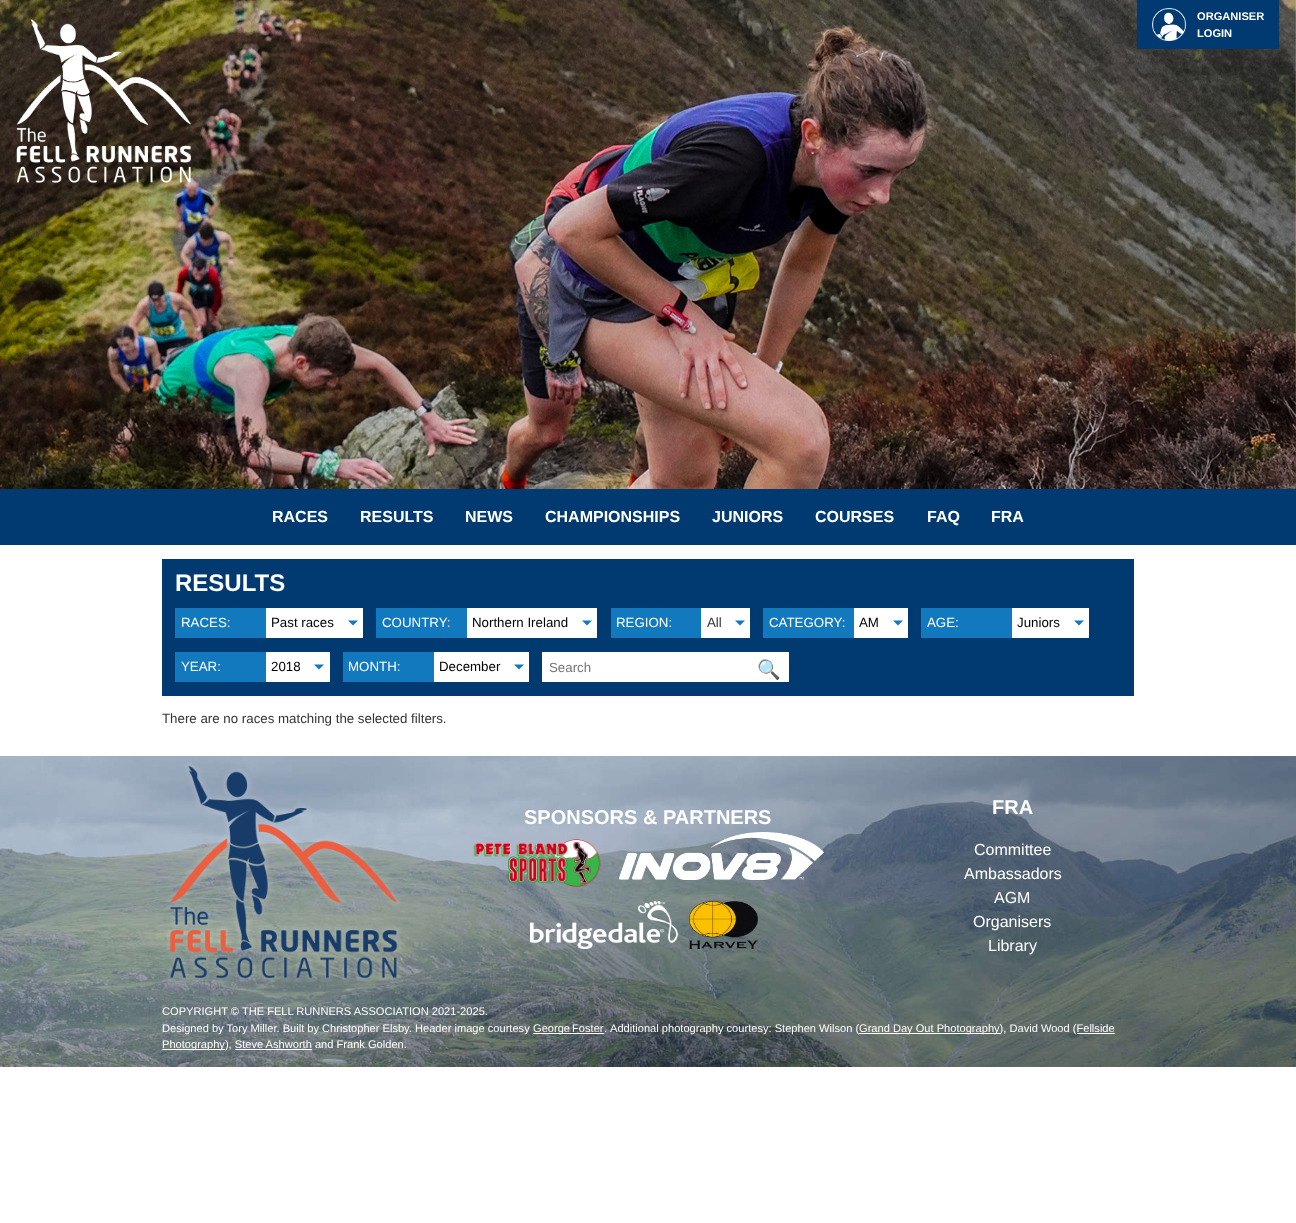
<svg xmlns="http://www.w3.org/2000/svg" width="1296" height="1223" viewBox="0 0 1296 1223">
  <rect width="100%" height="100%" fill="#ffffff"/>
  <image x="0" y="0" width="1296" height="489" href="img1.png"/>
  <image x="16" y="19" width="175" height="164" href="img2.png"/>
  <rect x="1137" y="0" width="142" height="49" fill="#003a70"/>
  <image x="1152" y="8" width="34" height="33" href="img3.png"/>
  <text x="1197" y="20" font-family="Liberation Sans" font-size="11.1" font-weight="bold" fill="#ffffff">ORGANISER</text>
  <text x="1197" y="37" font-family="Liberation Sans" font-size="11.1" font-weight="bold" fill="#ffffff">LOGIN</text>
  <rect x="0" y="489" width="1296" height="56" fill="#003a70"/>
  <text x="272" y="522" font-family="Liberation Sans" font-size="16" font-weight="bold" fill="#ffffff">RACES</text>
  <text x="360" y="522" font-family="Liberation Sans" font-size="16" font-weight="bold" fill="#ffffff">RESULTS</text>
  <text x="465" y="522" font-family="Liberation Sans" font-size="16" font-weight="bold" fill="#ffffff">NEWS</text>
  <text x="545" y="522" font-family="Liberation Sans" font-size="16" font-weight="bold" fill="#ffffff">CHAMPIONSHIPS</text>
  <text x="712" y="522" font-family="Liberation Sans" font-size="16" font-weight="bold" fill="#ffffff">JUNIORS</text>
  <text x="815" y="522" font-family="Liberation Sans" font-size="16" font-weight="bold" fill="#ffffff">COURSES</text>
  <text x="927" y="522" font-family="Liberation Sans" font-size="16" font-weight="bold" fill="#ffffff">FAQ</text>
  <text x="991" y="522" font-family="Liberation Sans" font-size="16" font-weight="bold" fill="#ffffff">FRA</text>
  <rect x="162" y="559" width="972" height="137" fill="#003a70"/>
  <text x="175" y="591" font-family="Liberation Sans" font-size="24" font-weight="bold" fill="#ffffff">RESULTS</text>
  <rect x="175" y="608" width="91" height="30" fill="#1279bf"/>
  <text x="181" y="627" font-family="Liberation Sans" font-size="13.3" fill="#ffffff">RACES:</text>
  <rect x="266" y="608" width="97" height="30" fill="#ffffff"/>
  <text x="271" y="627" font-family="Liberation Sans" font-size="13.3" fill="#000000">Past races</text>
  <path d="M348 620.5H358L353 625.5Z" fill="#1279bf"/>
  <rect x="376" y="608" width="91" height="30" fill="#1279bf"/>
  <text x="382" y="627" font-family="Liberation Sans" font-size="13.3" fill="#ffffff">COUNTRY:</text>
  <rect x="467" y="608" width="130" height="30" fill="#ffffff"/>
  <text x="472" y="627" font-family="Liberation Sans" font-size="13.3" fill="#000000">Northern Ireland</text>
  <path d="M582 620.5H592L587 625.5Z" fill="#1279bf"/>
  <rect x="611" y="608" width="90" height="30" fill="#1279bf"/>
  <text x="616" y="627" font-family="Liberation Sans" font-size="13.3" fill="#ffffff">REGION:</text>
  <rect x="701" y="608" width="49" height="30" fill="#ffffff"/>
  <text x="707" y="627" font-family="Liberation Sans" font-size="13.3" fill="#333333">All</text>
  <path d="M735 620.5H745L740 625.5Z" fill="#1279bf"/>
  <rect x="763" y="608" width="91" height="30" fill="#1279bf"/>
  <text x="769" y="627" font-family="Liberation Sans" font-size="13.3" fill="#ffffff">CATEGORY:</text>
  <rect x="854" y="608" width="54" height="30" fill="#ffffff"/>
  <text x="859" y="627" font-family="Liberation Sans" font-size="13.3" fill="#000000">AM</text>
  <path d="M893 620.5H903L898 625.5Z" fill="#1279bf"/>
  <rect x="921" y="608" width="91" height="30" fill="#1279bf"/>
  <text x="927" y="627" font-family="Liberation Sans" font-size="13.3" fill="#ffffff">AGE:</text>
  <rect x="1012" y="608" width="77" height="30" fill="#ffffff"/>
  <text x="1017" y="627" font-family="Liberation Sans" font-size="13.3" fill="#000000">Juniors</text>
  <path d="M1074 620.5H1084L1079 625.5Z" fill="#1279bf"/>
  <rect x="175" y="652" width="91" height="30" fill="#1279bf"/>
  <text x="181" y="671" font-family="Liberation Sans" font-size="13.3" fill="#ffffff">YEAR:</text>
  <rect x="266" y="652" width="64" height="30" fill="#ffffff"/>
  <text x="271" y="671" font-family="Liberation Sans" font-size="13.3" fill="#000000">2018</text>
  <path d="M314 664.5H324L319 669.5Z" fill="#1279bf"/>
  <rect x="343" y="652" width="91" height="30" fill="#1279bf"/>
  <text x="348" y="671" font-family="Liberation Sans" font-size="13.3" fill="#ffffff">MONTH:</text>
  <rect x="434" y="652" width="95" height="30" fill="#ffffff"/>
  <text x="439" y="671" font-family="Liberation Sans" font-size="13.3" fill="#000000">December</text>
  <path d="M514 664.5H524L519 669.5Z" fill="#1279bf"/>
  <rect x="542" y="652" width="247" height="30" fill="#ffffff"/>
  <text x="549" y="672" font-family="Liberation Sans" font-size="13.3" fill="#757575">Search</text>
  <text x="757" y="676" font-family="Noto Color Emoji" font-size="19" fill="#1279bf">🔍</text>
  <text x="162" y="723" font-family="Liberation Sans" font-size="13.3" fill="#333333">There are no races matching the selected filters.</text>
  <image x="0" y="756" width="1296" height="311" href="img4.png"/>
  <image x="166" y="762" width="236" height="221" href="img5.png"/>
  <text x="524" y="824" font-family="Liberation Sans" font-size="20" font-weight="bold" fill="#ffffff">SPONSORS &amp; PARTNERS</text>
  <image x="473" y="839" width="128" height="48" href="img6.png"/>
  <image x="619" y="832" width="205" height="48" href="img7.png"/>
  <image x="530" y="901" width="148" height="48" href="img8.png"/>
  <image x="689" y="901" width="69" height="48" href="img9.png"/>
  <text x="992" y="814" font-family="Liberation Sans" font-size="20" font-weight="bold" fill="#ffffff">FRA</text>
  <text x="974" y="855" font-family="Liberation Sans" font-size="16" fill="#ffffff">Committee</text>
  <text x="964" y="879" font-family="Liberation Sans" font-size="16" fill="#ffffff">Ambassadors</text>
  <text x="994" y="903" font-family="Liberation Sans" font-size="16" fill="#ffffff">AGM</text>
  <text x="973" y="927" font-family="Liberation Sans" font-size="16" fill="#ffffff">Organisers</text>
  <text x="988" y="951" font-family="Liberation Sans" font-size="16" fill="#ffffff">Library</text>
  <text x="162" y="1015" font-family="Liberation Sans" font-size="11.1" fill="#ffffff">COPYRIGHT © THE FELL RUNNERS ASSOCIATION 2021-2025.</text>
  <text x="162" y="1032" font-family="Liberation Sans" font-size="11.1" fill="#ffffff">Designed by Tory Miller. Built by Christopher Elsby. Header image courtesy</text>
  <rect x="533" y="1033" width="71" height="1" fill="#ffffff"/>
  <text x="533" y="1032" word-spacing="-1" font-family="Liberation Sans" font-size="11.1" fill="#ffffff">George Foster</text>
  <text x="604" y="1032" font-family="Liberation Sans" font-size="11.1" fill="#ffffff">.</text>
  <text x="610" y="1032" font-family="Liberation Sans" font-size="11.1" fill="#ffffff">Additional photography courtesy: Stephen Wilson (</text>
  <rect x="859" y="1033" width="141" height="1" fill="#ffffff"/>
  <text x="859" y="1032" font-family="Liberation Sans" font-size="11.1" fill="#ffffff">Grand Day Out Photography), David Wood (Fellside</text>
  <rect x="162" y="1049" width="63" height="1" fill="#ffffff"/>
  <text x="162" y="1048" font-family="Liberation Sans" font-size="11.1" fill="#ffffff">Photography), Steve Ashworth and Frank Golden.</text>
  <rect x="1077" y="1033" width="38" height="1" fill="#ffffff"/>
  <rect x="235" y="1049" width="77" height="1" fill="#ffffff"/>
</svg>
